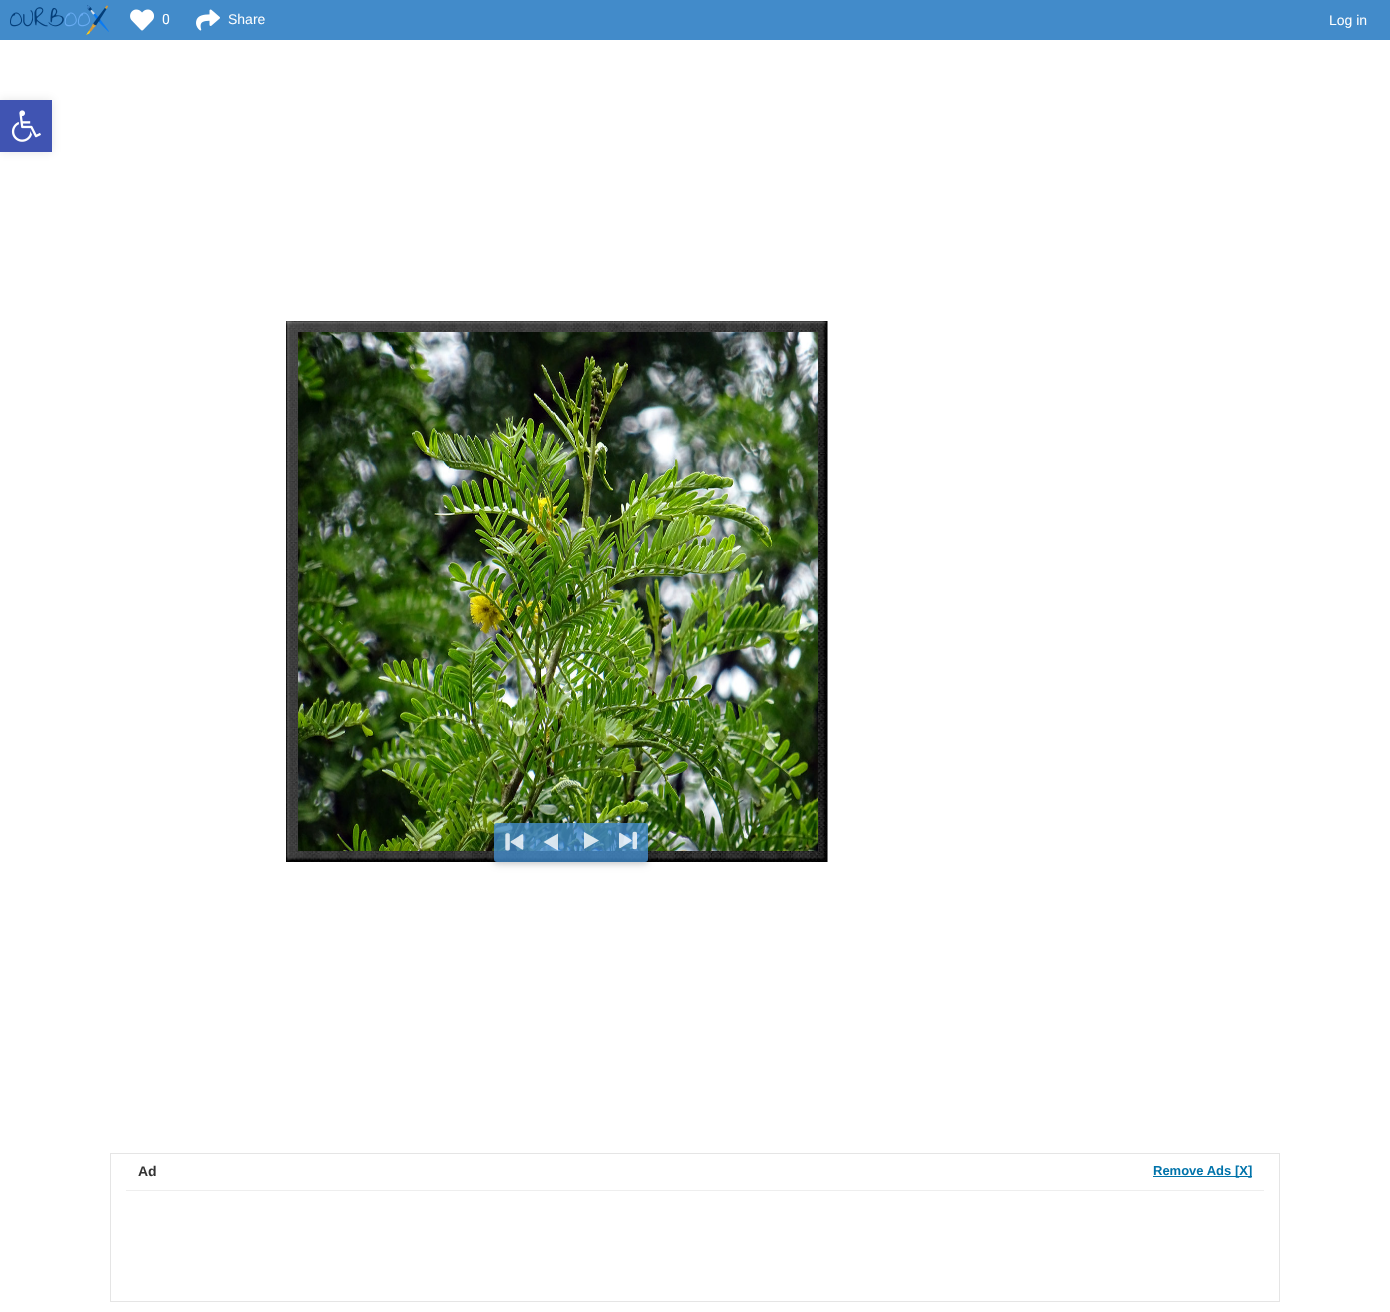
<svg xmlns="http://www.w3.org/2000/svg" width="1390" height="1312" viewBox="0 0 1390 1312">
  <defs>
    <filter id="blur1" x="-50%" y="-200%" width="200%" height="500%"><feGaussianBlur stdDeviation="5"/></filter>
    <clipPath id="clip1"><path d="M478 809H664V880H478ZM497 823H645C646.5 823 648 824.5 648 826V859C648 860.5 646.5 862 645 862H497C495.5 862 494 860.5 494 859V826C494 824.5 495.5 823 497 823Z" clip-rule="evenodd"/></clipPath>
    <clipPath id="clip2"><path d="M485 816H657V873H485ZM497 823H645C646.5 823 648 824.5 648 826V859C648 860.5 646.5 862 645 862H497C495.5 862 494 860.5 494 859V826C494 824.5 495.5 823 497 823Z" clip-rule="evenodd"/></clipPath>
    <filter id="blur2" x="-50%" y="-200%" width="200%" height="500%"><feGaussianBlur stdDeviation="2.5"/></filter>
  </defs>
  <rect width="100%" height="100%" fill="#ffffff"/>
  <rect x="0" y="100" width="52" height="52" fill="#000000" fill-opacity="0.1" filter="url(#blur1)"/>
  <rect x="0" y="100" width="52" height="52" fill="#4054b2"/>
  <image x="11" y="110" width="30" height="32" href="img1.png"/>
  <rect x="0" y="0" width="1390" height="40" fill="#428bca"/>
  <image x="10" y="5" width="99" height="30" href="img2.png"/>
  <image x="130" y="9" width="24" height="22" href="img3.png"/>
  <text x="162" y="24" font-family="Roboto" font-size="14" fill="#ffffff">0</text>
  <image x="196" y="9" width="24" height="22" href="img4.png"/>
  <text x="228" y="24" font-family="Liberation Sans" font-size="14" fill="#ffffff">Share</text>
  <text x="1329" y="25" font-family="Liberation Sans" font-size="14" fill="#ffffff">Log in</text>
  <rect x="827" y="321" width="1" height="541" fill="#7b7b7b"/>
  <image x="286" y="321" width="541" height="541" href="img5.png"/>
  <image x="298" y="332" width="520" height="519" href="img6.png"/>
  <g clip-path="url(#clip1)">
    <rect x="494" y="825" width="154" height="39" rx="3" fill="#000000" fill-opacity="0.1" filter="url(#blur1)"/>
  </g>
  <g clip-path="url(#clip2)">
    <rect x="494" y="825" width="154" height="39" rx="3" fill="#000000" fill-opacity="0.13" filter="url(#blur2)"/>
  </g>
  <rect x="494" y="823" width="154" height="39" rx="3" fill="#428bca" fill-opacity="0.8"/>
  <image x="505" y="833" width="19" height="18" href="img7.png"/>
  <path d="M558 850.5L543.5 842L558 833.5Z" fill="#ffffff" fill-opacity="0.8"/>
  <path d="M584 832L599 840.5L584 849Z" fill="#ffffff" fill-opacity="0.8"/>
  <image x="619" y="831" width="18" height="19" href="img8.png"/>
  <rect x="110.5" y="1153.5" width="1169" height="148" fill="none" stroke="#e5e5e5"/>
  <rect x="126" y="1190" width="1138" height="1" fill="#eeeeee"/>
  <text x="138" y="1176" font-family="Liberation Sans" font-size="14" font-weight="bold" fill="#333333">Ad</text>
  <rect x="1153" y="1176" width="99" height="1" fill="#0073aa"/>
  <text x="1153" y="1175" font-family="Liberation Sans" font-size="13" font-weight="bold" fill="#0073aa">Remove Ads [X]</text>
</svg>
